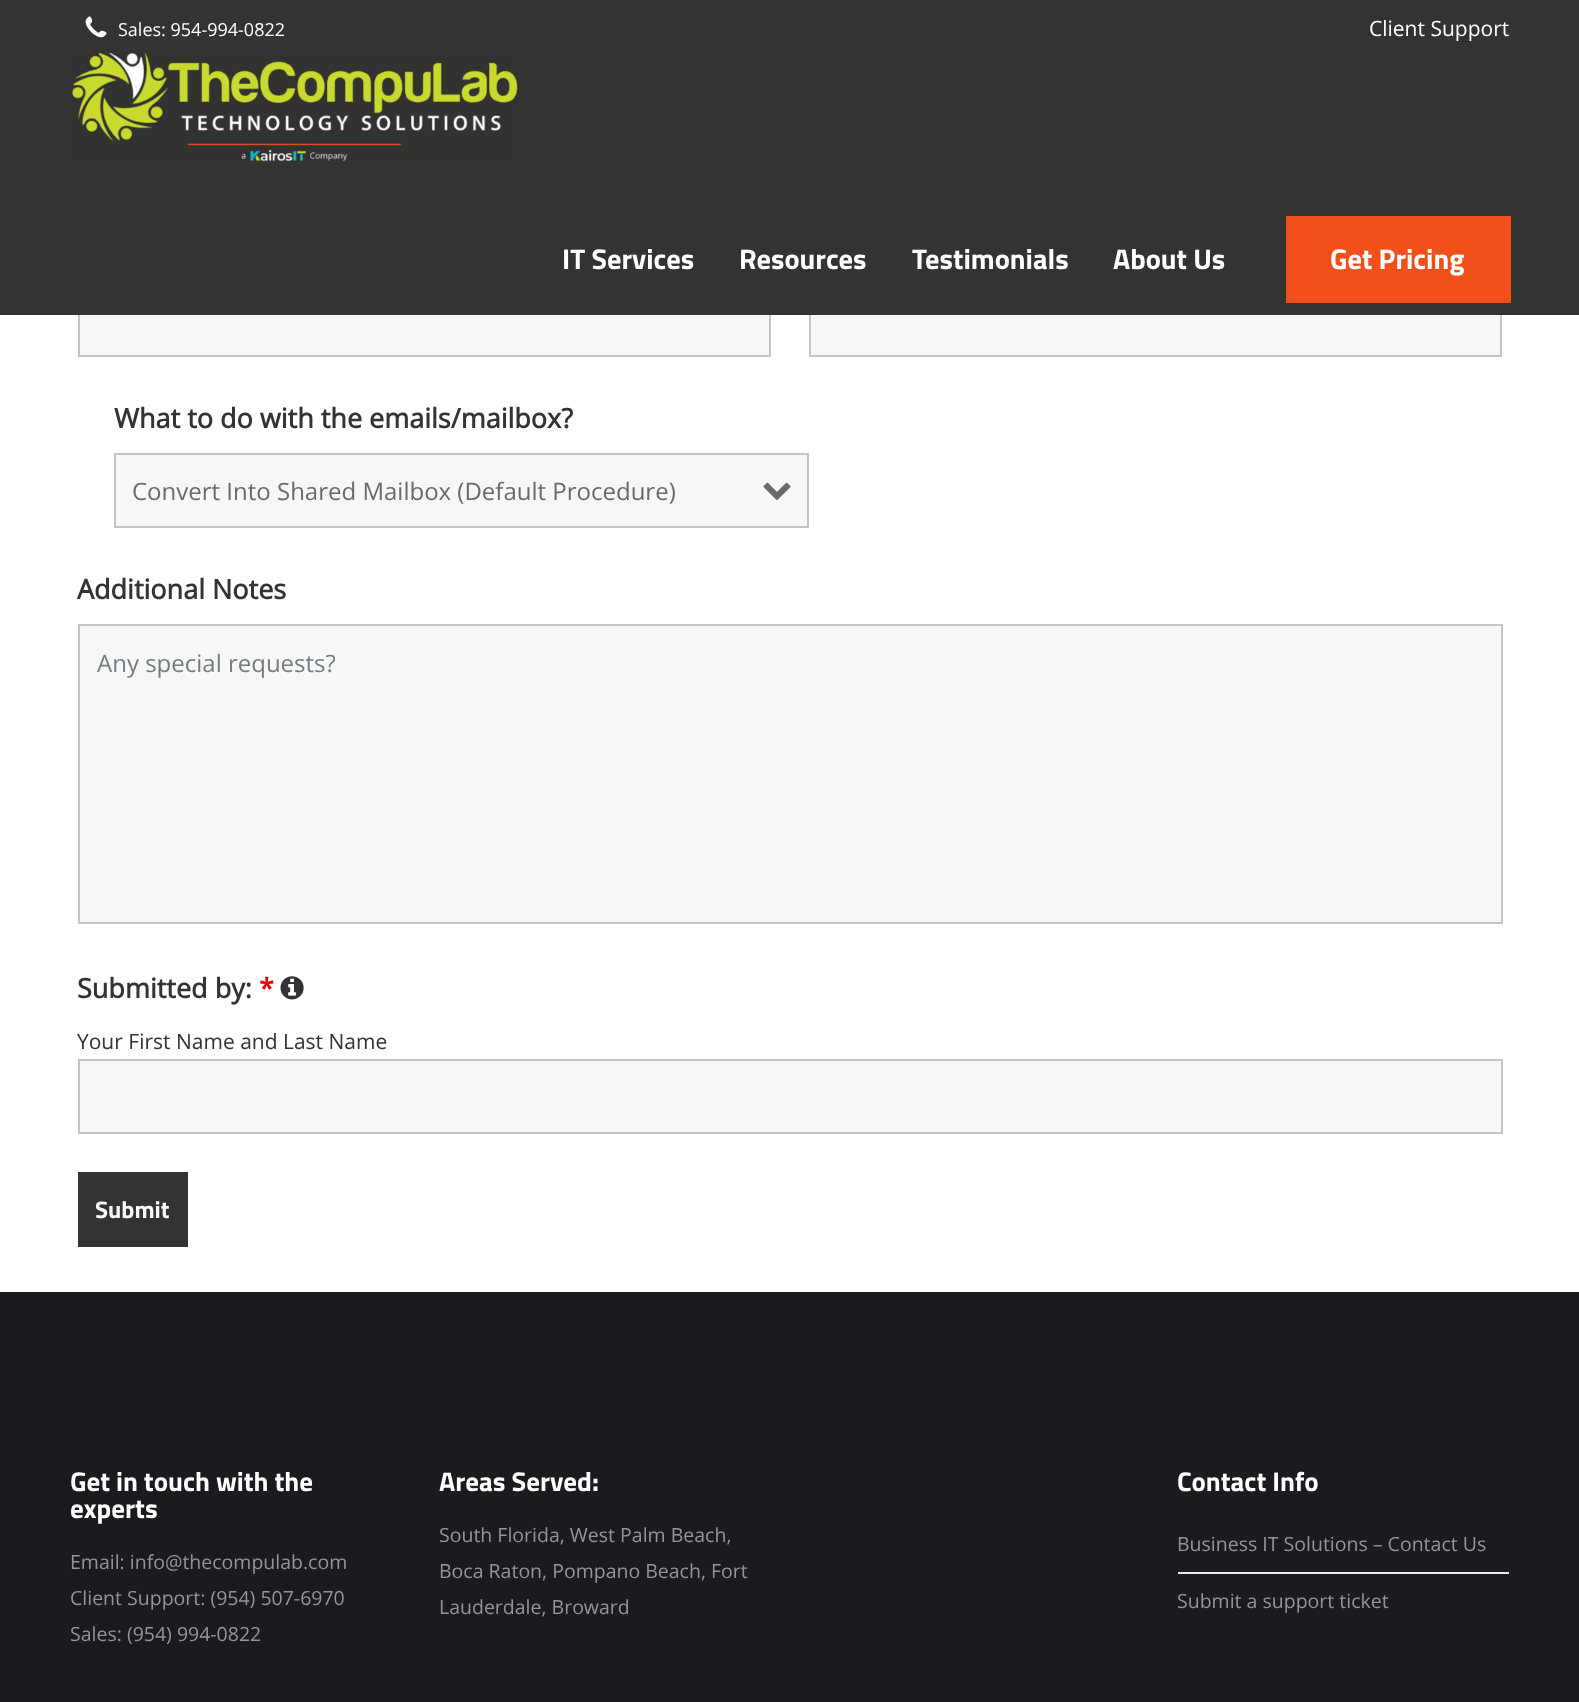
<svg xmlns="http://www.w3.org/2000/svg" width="1579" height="1702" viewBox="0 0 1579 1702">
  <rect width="100%" height="100%" fill="#ffffff"/>
  <rect x="80" y="315" width="689" height="40" fill="#f7f7f7"/>
  <rect x="79" y="283" width="691" height="73" fill="none" stroke="#c4c4c4" stroke-width="2"/>
  <rect x="811" y="315" width="689" height="40" fill="#f7f7f7"/>
  <rect x="810" y="283" width="691" height="73" fill="none" stroke="#c4c4c4" stroke-width="2"/>
  <rect x="0" y="0" width="1579" height="315" fill="#333332"/>
  <image x="85" y="16" width="22" height="22" href="img1.png"/>
  <text x="118" y="36" font-family="Open Sans" font-size="18" fill="#ffffff">Sales: 954-994-0822</text>
  <text x="1369" y="36" font-family="Open Sans" font-size="21" fill="#ffffff">Client Support</text>
  <image x="72" y="53" width="446" height="109" href="img2.png"/>
  <text x="562" y="269" font-family="Titillium Web" font-size="28.5" font-weight="bold" fill="#ffffff">IT Services</text>
  <text x="739" y="269" font-family="Titillium Web" font-size="28.5" font-weight="bold" fill="#ffffff">Resources</text>
  <text x="912" y="269" font-family="Titillium Web" font-size="28.5" font-weight="bold" fill="#ffffff">Testimonials</text>
  <text x="1113" y="269" font-family="Titillium Web" font-size="28.5" font-weight="bold" fill="#ffffff">About Us</text>
  <rect x="1286" y="216" width="225" height="87" fill="#f1501a"/>
  <text x="1330" y="269" font-family="Titillium Web" font-size="28.5" font-weight="bold" fill="#ffffff">Get Pricing</text>
  <text x="114" y="428" font-family="Open Sans" font-size="27" font-weight="bold" fill="#333332">What to do with the emails/mailbox?</text>
  <rect x="115" y="454" width="693" height="73" fill="#f7f7f7" stroke="#c4c4c4" stroke-width="2"/>
  <image x="763" y="482" width="28" height="18" href="img3.png"/>
  <text x="132" y="500" font-family="Open Sans" font-size="24" fill="#6a6a6a">Convert Into Shared Mailbox (Default Procedure)</text>
  <text x="77" y="599" font-family="Open Sans" font-size="27" font-weight="bold" fill="#333332">Additional Notes</text>
  <rect x="79" y="625" width="1423" height="298" fill="#f7f7f7" stroke="#c4c4c4" stroke-width="2"/>
  <text x="97" y="672" font-family="Open Sans" font-size="24" fill="#737d82">Any special requests?</text>
  <text x="77" y="998" font-family="Open Sans" font-size="27" font-weight="bold" fill="#333332">Submitted by:</text>
  <text x="259" y="998" font-family="Open Sans" font-size="27" font-weight="bold" fill="#e80000">*</text>
  <image x="280" y="976" width="24" height="24" href="img4.png"/>
  <text x="77" y="1049" font-family="Open Sans" font-size="21" fill="#333332">Your First Name and Last Name</text>
  <rect x="79" y="1060" width="1423" height="73" fill="#f7f7f7" stroke="#c4c4c4" stroke-width="2"/>
  <rect x="78" y="1172" width="110" height="75" fill="#333333"/>
  <text x="95" y="1218" font-family="Titillium Web" font-size="24" font-weight="bold" fill="#f7f7f7">Submit</text>
  <rect x="0" y="1292" width="1579" height="410" fill="#191b1f"/>
  <text x="70" y="1491" font-family="Titillium Web" font-size="27" font-weight="bold" fill="#ffffff">Get in touch with the</text>
  <text x="70" y="1518" font-family="Titillium Web" font-size="27" font-weight="bold" fill="#ffffff">experts</text>
  <text x="70" y="1569" font-family="Open Sans" font-size="19.5" fill="#93959d">Email: info@thecompulab.com</text>
  <text x="70" y="1605" font-family="Open Sans" font-size="19.5" fill="#93959d">Client Support: (954) 507-6970</text>
  <text x="70" y="1641" font-family="Open Sans" font-size="19.5" fill="#93959d">Sales: (954) 994-0822</text>
  <text x="439" y="1491" font-family="Titillium Web" font-size="27" font-weight="bold" fill="#ffffff">Areas Served:</text>
  <text x="439" y="1542" font-family="Open Sans" font-size="19.5" fill="#93959d">South Florida, West Palm Beach,</text>
  <text x="439" y="1578" font-family="Open Sans" font-size="19.5" fill="#93959d">Boca Raton, Pompano Beach, Fort</text>
  <text x="439" y="1614" font-family="Open Sans" font-size="19.5" fill="#93959d">Lauderdale, Broward</text>
  <text x="1177" y="1491" font-family="Titillium Web" font-size="27" font-weight="bold" fill="#ffffff">Contact Info</text>
  <rect x="1178" y="1572" width="331" height="2" fill="#e6ebed"/>
  <text x="1177" y="1551" font-family="Open Sans" font-size="19.5" fill="#93959d">Business IT Solutions – Contact Us</text>
  <text x="1177" y="1608" font-family="Open Sans" font-size="19.5" fill="#93959d">Submit a support ticket</text>
</svg>
